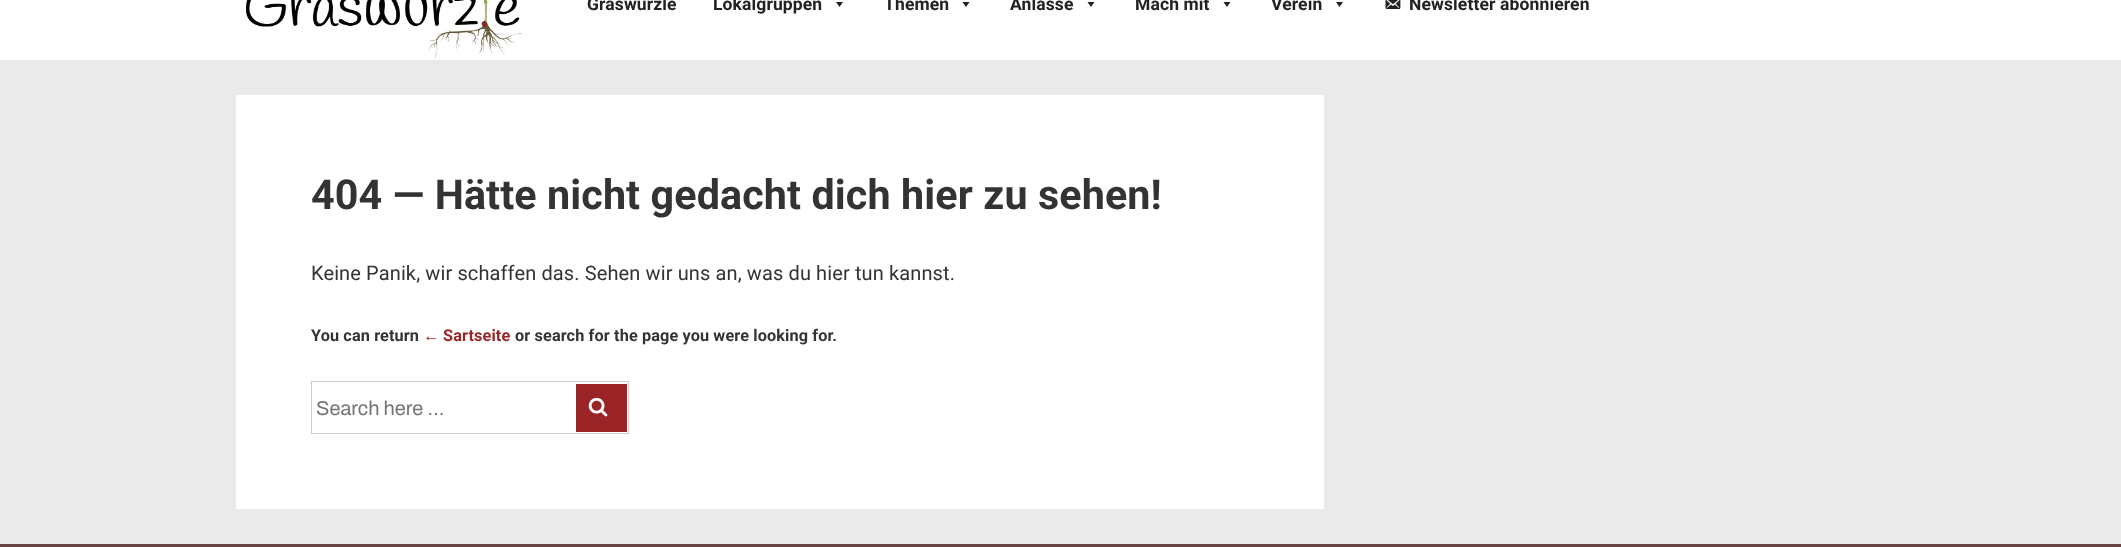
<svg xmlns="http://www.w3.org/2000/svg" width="2121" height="547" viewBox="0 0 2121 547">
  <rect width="100%" height="100%" fill="#eaeaea"/>
  <rect x="0" y="0" width="2121" height="60" fill="#ffffff"/>
  <image x="246" y="0" width="276" height="59" href="img1.png"/>
  <text x="587" y="10" font-family="Roboto" font-size="17.5" font-weight="bold" letter-spacing="0.12" fill="#222222">Graswurzle</text>
  <text x="713" y="10" font-family="Roboto" font-size="17.5" font-weight="bold" letter-spacing="0.12" fill="#222222">Lokalgruppen</text>
  <path d="M843 2L839.5 7L836 2Z" fill="#222222"/>
  <text x="884" y="10" font-family="Roboto" font-size="17.5" font-weight="bold" letter-spacing="0.12" fill="#222222">Themen</text>
  <path d="M969.5 2L966 7L962.5 2Z" fill="#222222"/>
  <text x="1010" y="10" font-family="Roboto" font-size="17.5" font-weight="bold" letter-spacing="0.12" fill="#222222">Anlässe</text>
  <path d="M1094.5 2L1091 7L1087.5 2Z" fill="#222222"/>
  <text x="1135" y="10" font-family="Roboto" font-size="17.5" font-weight="bold" letter-spacing="0.12" fill="#222222">Mach mit</text>
  <path d="M1230.5 2L1227 7L1223.5 2Z" fill="#222222"/>
  <text x="1271" y="10" font-family="Roboto" font-size="17.5" font-weight="bold" letter-spacing="0.12" fill="#222222">Verein</text>
  <path d="M1343 2L1339.5 7L1336 2Z" fill="#222222"/>
  <image x="1385" y="0" width="16" height="9" href="img2.png"/>
  <text x="1409" y="10" font-family="Roboto" font-size="17.5" font-weight="bold" letter-spacing="0.12" fill="#222222">Newsletter abonnieren</text>
  <rect x="236" y="95" width="1088" height="414" fill="#ffffff"/>
  <text x="311" y="209" font-family="Roboto" font-size="41.25" font-weight="bold" letter-spacing="0.12" fill="#333333">404 — Hätte nicht gedacht dich hier zu sehen!</text>
  <text x="311" y="280" font-family="Roboto" font-size="20" letter-spacing="0.12" fill="#333333">Keine Panik, wir schaffen das. Sehen wir uns an, was du hier tun kannst.</text>
  <text x="311" y="341" font-family="Roboto" font-size="16.25" font-weight="bold" letter-spacing="0.12" fill="#333333">You can return</text>
  <text x="423" y="341" font-family="Liberation Sans" font-size="16.25" font-weight="bold" letter-spacing="0.12" fill="#9b2426">←</text>
  <text x="443" y="341" font-family="Roboto" font-size="16.25" font-weight="bold" letter-spacing="0.12" fill="#9b2426">Sartseite</text>
  <text x="515" y="341" font-family="Roboto" font-size="16.25" font-weight="bold" letter-spacing="0.12" fill="#333333">or search for the page you were looking for.</text>
  <rect x="311.5" y="381.5" width="317" height="52" fill="none" stroke="#cccccc"/>
  <text x="316" y="415" font-family="Archivo" font-size="20" fill="#757575">Search here …</text>
  <rect x="576" y="384" width="51" height="48" fill="#9b2426"/>
  <image x="588" y="397" width="20" height="20" href="img3.png"/>
  <rect x="0" y="544" width="2121" height="3" fill="#684646"/>
</svg>
